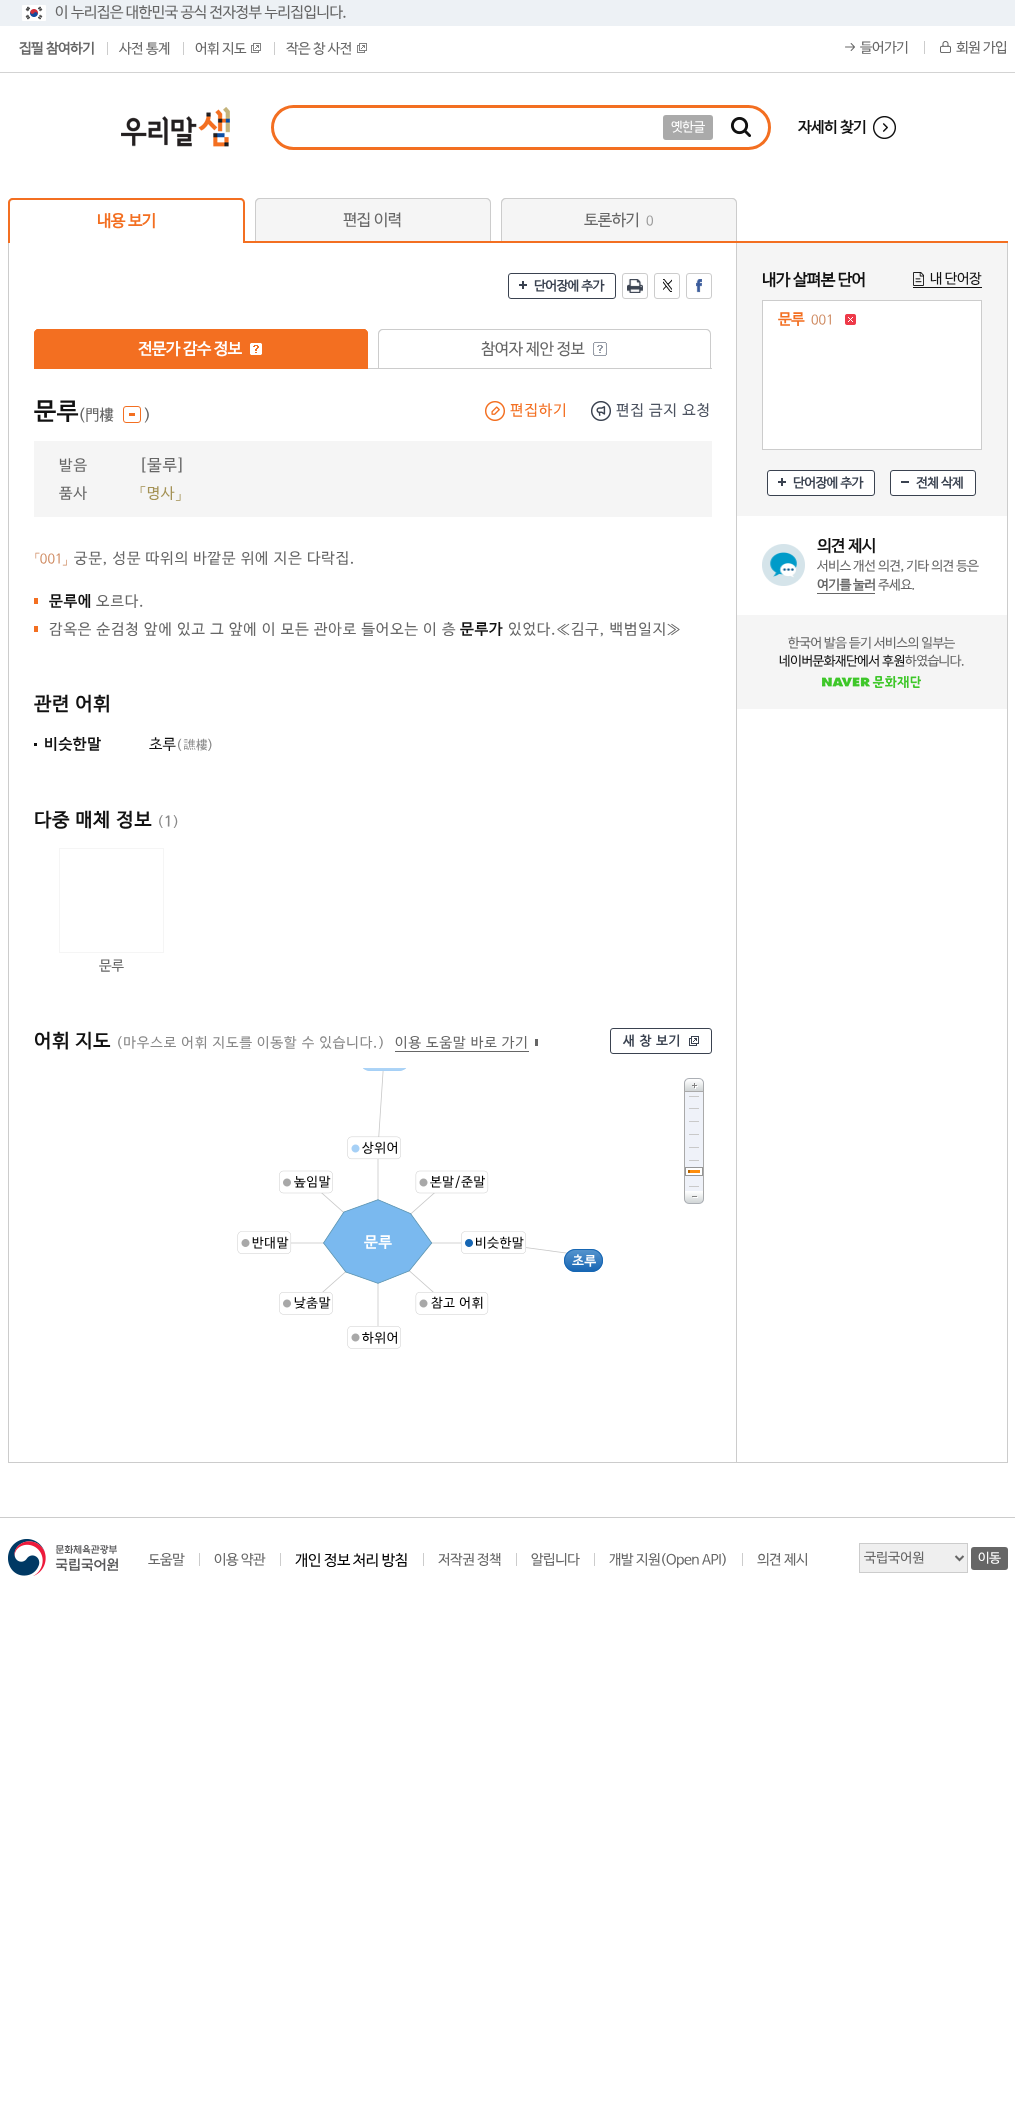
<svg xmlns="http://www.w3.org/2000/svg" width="1015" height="2124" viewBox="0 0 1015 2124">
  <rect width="100%" height="100%" fill="#ffffff"/>
  <rect x="0" y="0" width="1015" height="26" fill="#edf1f5"/>
  <image x="22" y="5" width="24" height="16" href="img1.png"/>
  <text x="55" y="17" font-family="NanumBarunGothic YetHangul" font-size="15" letter-spacing="-0.4" fill="#666666">이 누리집은 대한민국 공식 전자정부 누리집입니다.</text>
  <rect x="0" y="72" width="1015" height="1" fill="#d3d3d3"/>
  <text x="19" y="53" font-family="NanumBarunGothic YetHangul" font-size="14" font-weight="bold" letter-spacing="-0.4" fill="#666666">집필 참여하기</text>
  <rect x="107" y="42" width="1" height="13" fill="#cccccc"/>
  <text x="119" y="53" font-family="NanumBarunGothic YetHangul" font-size="14" letter-spacing="-0.4" fill="#666666">사전 통계</text>
  <rect x="183" y="42" width="1" height="13" fill="#cccccc"/>
  <text x="195" y="53" font-family="NanumBarunGothic YetHangul" font-size="14" letter-spacing="-0.4" fill="#666666">어휘 지도</text>
  <image x="251" y="43" width="10" height="10" href="img2.png"/>
  <rect x="274" y="42" width="1" height="13" fill="#cccccc"/>
  <text x="286" y="53" font-family="NanumBarunGothic YetHangul" font-size="14" letter-spacing="-0.4" fill="#666666">작은 창 사전</text>
  <image x="357" y="43" width="10" height="10" href="img2.png"/>
  <image x="845" y="43" width="10" height="8" href="img3.png"/>
  <text x="860" y="52" font-family="NanumBarunGothic YetHangul" font-size="14" letter-spacing="-0.4" fill="#666666">들어가기</text>
  <rect x="924" y="41" width="1" height="13" fill="#cccccc"/>
  <image x="940" y="41" width="11" height="12" href="img4.png"/>
  <text x="956" y="52" font-family="NanumBarunGothic YetHangul" font-size="14" letter-spacing="-0.4" fill="#666666">회원 가입</text>
  <image x="121" y="107" width="109" height="40" href="img5.png"/>
  <rect x="272.5" y="106.5" width="497" height="42" rx="21" fill="none" stroke="#f36f21" stroke-width="3"/>
  <rect x="663" y="115" width="50" height="25" rx="3" fill="#aaaaaa"/>
  <text x="671" y="131" font-family="NanumBarunGothic YetHangul" font-size="13" letter-spacing="-0.4" fill="#ffffff">옛한글</text>
  <image x="731" y="117" width="20" height="20" href="img6.png"/>
  <image x="873" y="116" width="23" height="23" href="img7.png"/>
  <text x="798" y="132" font-family="NanumBarunGothic YetHangul" font-size="15" font-weight="bold" letter-spacing="-0.4" fill="#111111">자세히 찾기</text>
  <path d="M13 198H240C243 198 245 200 245 203V243H8V203C8 200 10 198 13 198ZM13 200H240C242 200 243 201 243 203V243H10V203C10 201 11 200 13 200Z" fill="#f36f21" fill-rule="evenodd"/>
  <text x="97" y="226" font-family="NanumBarunGothic YetHangul" font-size="16" font-weight="bold" letter-spacing="-0.4" fill="#f36f21">내용 보기</text>
  <path d="M260 198H486C489 198 491 200 491 203V243H255V203C255 200 257 198 260 198Z" fill="#f5f5f5"/>
  <path d="M260 198H486C489 198 491 200 491 203V243H255V203C255 200 257 198 260 198ZM260 199H486C488 199 490 201 490 203V243H256V203C256 201 258 199 260 199Z" fill="#cccccc" fill-rule="evenodd"/>
  <text x="343" y="225" font-family="NanumBarunGothic YetHangul" font-size="16" letter-spacing="-0.4" fill="#666666">편집 이력</text>
  <path d="M506 198H732C735 198 737 200 737 203V243H501V203C501 200 503 198 506 198Z" fill="#f5f5f5"/>
  <path d="M506 198H732C735 198 737 200 737 203V243H501V203C501 200 503 198 506 198ZM506 199H732C734 199 736 201 736 203V243H502V203C502 201 504 199 506 199Z" fill="#cccccc" fill-rule="evenodd"/>
  <text x="584" y="225" font-family="NanumBarunGothic YetHangul" font-size="16" letter-spacing="-0.4" fill="#666666">토론하기</text>
  <text x="646" y="225" font-family="NanumBarunGothic YetHangul" font-size="13" letter-spacing="-0.4" fill="#999999">0</text>
  <rect x="245" y="241" width="763" height="2" fill="#f36f21"/>
  <rect x="1007" y="243" width="1" height="1220" fill="#cccccc"/>
  <rect x="8" y="1462" width="1000" height="1" fill="#cccccc"/>
  <rect x="8" y="243" width="1" height="1220" fill="#cccccc"/>
  <rect x="508.5" y="273.5" width="107" height="25" rx="2.5" fill="none" stroke="#3a4250"/>
  <image x="519" y="281" width="8" height="8" href="img8.png"/>
  <text x="534" y="290" font-family="NanumBarunGothic YetHangul" font-size="13" font-weight="bold" letter-spacing="-0.4" fill="#3a4250">단어장에 추가</text>
  <rect x="622.5" y="273.5" width="25" height="25" rx="2.5" fill="none" stroke="#cccccc"/>
  <image x="627" y="279" width="16" height="14" href="img9.png"/>
  <rect x="654.5" y="273.5" width="25" height="25" rx="2.5" fill="none" stroke="#cccccc"/>
  <image x="663" y="279" width="9" height="13" href="img10.png"/>
  <rect x="686.5" y="273.5" width="25" height="25" rx="2.5" fill="none" stroke="#cccccc"/>
  <image x="696" y="279" width="6" height="14" href="img11.png"/>
  <path d="M39 329H363C366 329 368 331 368 334V369H34V334C34 331 36 329 39 329Z" fill="#f36f21"/>
  <path d="M39 329H363C366 329 368 331 368 334V369H34V334C34 331 36 329 39 329ZM39 330H363C365 330 367 332 367 334V369H35V334C35 332 37 330 39 330Z" fill="#f36f21" fill-rule="evenodd"/>
  <text x="138" y="354" font-family="NanumBarunGothic YetHangul" font-size="16" font-weight="bold" letter-spacing="-0.4" fill="#ffffff">전문가 감수 정보</text>
  <image x="250" y="343" width="12" height="12" href="img12.png"/>
  <path d="M383 329H706C709 329 711 331 711 334V369H378V334C378 331 380 329 383 329ZM383 330H706C708 330 710 332 710 334V369H379V334C379 332 381 330 383 330Z" fill="#cccccc" fill-rule="evenodd"/>
  <text x="481" y="354" font-family="NanumBarunGothic YetHangul" font-size="16" letter-spacing="-0.4" fill="#666666">참여자 제안 정보</text>
  <image x="593" y="342" width="14" height="14" href="img13.png"/>
  <rect x="368" y="368" width="344" height="1" fill="#cccccc"/>
  <text x="34" y="419" font-family="NanumBarunGothic YetHangul" font-size="24" font-weight="bold" letter-spacing="1" fill="#111111">문루</text>
  <text x="78" y="420" font-family="NanumBarunGothic YetHangul" font-size="16" fill="#666666">(門樓</text>
  <rect x="123.5" y="406.5" width="17" height="16" rx="2.5" fill="none" stroke="#f36f21"/>
  <rect x="129" y="413" width="6" height="3" fill="#f36f21"/>
  <text x="144" y="420" font-family="NanumBarunGothic YetHangul" font-size="16" fill="#666666">)</text>
  <image x="485" y="401" width="20" height="20" href="img14.png"/>
  <text x="510" y="415" font-family="NanumBarunGothic YetHangul" font-size="15" letter-spacing="1" fill="#f36f21">편집하기</text>
  <image x="591" y="401" width="20" height="20" href="img15.png"/>
  <text x="616" y="415" font-family="NanumBarunGothic YetHangul" font-size="15" letter-spacing="1" fill="#4c5360">편집 금지 요청</text>
  <rect x="34" y="441" width="678" height="76" fill="#f5f5f5"/>
  <text x="59" y="470" font-family="NanumBarunGothic YetHangul" font-size="15" letter-spacing="1" fill="#666666">발음</text>
  <text x="139" y="470" font-family="NanumBarunGothic YetHangul" font-size="16" letter-spacing="1" fill="#666666">[물루]</text>
  <text x="59" y="498" font-family="NanumBarunGothic YetHangul" font-size="15" letter-spacing="1" fill="#666666">품사</text>
  <text x="139" y="498" font-family="NanumBarunGothic YetHangul" font-size="15" letter-spacing="1" fill="#a49255">「명사」</text>
  <text x="34" y="563" font-family="NanumBarunGothic YetHangul" font-size="13" fill="#cf8b62">「001」</text>
  <text x="74" y="563" font-family="NanumBarunGothic YetHangul" font-size="15" letter-spacing="1" fill="#666666">궁문, 성문 따위의 바깥문 위에 지은 다락집.</text>
  <rect x="34" y="598" width="4" height="6" fill="#f36f21"/>
  <text x="49" y="606" font-family="NanumBarunGothic YetHangul" font-size="15" font-weight="bold" letter-spacing="1" fill="#111111">문루에</text>
  <text x="96" y="606" font-family="NanumBarunGothic YetHangul" font-size="15" letter-spacing="1" fill="#666666">오르다.</text>
  <rect x="34" y="626" width="4" height="6" fill="#f36f21"/>
  <text x="49" y="634" font-family="NanumBarunGothic YetHangul" font-size="15" letter-spacing="1" fill="#666666">감옥은 순검청 앞에 있고 그 앞에 이 모든 관아로 들어오는 이 층</text>
  <text x="460" y="634" font-family="NanumBarunGothic YetHangul" font-size="15" font-weight="bold" letter-spacing="1" fill="#111111">문루가</text>
  <text x="508" y="634" font-family="NanumBarunGothic YetHangul" font-size="15" letter-spacing="1" fill="#666666">있었다.≪김구, 백범일지≫</text>
  <text x="34" y="710" font-family="NanumBarunGothic YetHangul" font-size="19" font-weight="bold" letter-spacing="1" fill="#111111">관련 어휘</text>
  <rect x="34" y="743" width="3" height="3" fill="#111111"/>
  <text x="44" y="749" font-family="NanumBarunGothic YetHangul" font-size="15" font-weight="bold" letter-spacing="1" fill="#111111">비슷한말</text>
  <text x="149" y="749" font-family="NanumBarunGothic YetHangul" font-size="15" fill="#111111">초루</text>
  <text x="176" y="749" font-family="NanumBarunGothic YetHangul" font-size="13" fill="#888888">(</text>
  <text x="183" y="749" font-family="Dotum" font-size="13" fill="#888888">譙</text>
  <text x="196" y="749" font-family="NanumBarunGothic YetHangul" font-size="13" fill="#888888">樓)</text>
  <text x="34" y="826" font-family="NanumBarunGothic YetHangul" font-size="19" font-weight="bold" letter-spacing="1" fill="#111111">다중 매체 정보</text>
  <text x="157" y="826" font-family="NanumBarunGothic YetHangul" font-size="14" letter-spacing="1" fill="#888888">(</text>
  <text x="164" y="826" font-family="NanumBarunGothic YetHangul" font-size="14" font-weight="bold" letter-spacing="1" fill="#888888">1</text>
  <text x="173" y="826" font-family="NanumBarunGothic YetHangul" font-size="14" letter-spacing="1" fill="#888888">)</text>
  <rect x="59.5" y="848.5" width="104" height="104" fill="none" stroke="#f5f5f5"/>
  <text x="99" y="970" font-family="NanumBarunGothic YetHangul" font-size="14" fill="#666666">문루</text>
  <text x="34" y="1047" font-family="NanumBarunGothic YetHangul" font-size="19" font-weight="bold" letter-spacing="1" fill="#111111">어휘 지도</text>
  <text x="116" y="1047" font-family="NanumBarunGothic YetHangul" font-size="14" letter-spacing="1" fill="#888888">(마우스로 어휘 지도를 이동할 수 있습니다.)</text>
  <text x="395" y="1047" font-family="NanumBarunGothic YetHangul" font-size="14" letter-spacing="1" fill="#666666">이용 도움말 바로 가기</text>
  <rect x="535" y="1039" width="3" height="7" fill="#666666"/>
  <rect x="395" y="1051" width="134" height="1" fill="#666666"/>
  <rect x="610.5" y="1028.5" width="101" height="25" rx="2.5" fill="none" stroke="#3a4250"/>
  <text x="623" y="1045" font-family="NanumBarunGothic YetHangul" font-size="13" font-weight="bold" letter-spacing="1" fill="#3a4250">새 창 보기</text>
  <image x="689" y="1036" width="10" height="10" href="img16.png"/>
  <image x="237" y="1068" width="366" height="281" href="img17.png"/>
  <text x="362" y="1152" font-family="NanumBarunGothic YetHangul" font-size="13" letter-spacing="0.75" fill="#000000">상위어</text>
  <text x="294" y="1186" font-family="NanumBarunGothic YetHangul" font-size="13" letter-spacing="0.75" fill="#000000">높임말</text>
  <text x="430" y="1186" font-family="NanumBarunGothic YetHangul" font-size="13" letter-spacing="0.75" fill="#000000">본말/준말</text>
  <text x="252" y="1247" font-family="NanumBarunGothic YetHangul" font-size="13" letter-spacing="0.75" fill="#000000">반대말</text>
  <text x="364" y="1247" font-family="NanumBarunGothic YetHangul" font-size="15" font-weight="bold" letter-spacing="0.75" fill="#ffffff">문루</text>
  <text x="475" y="1247" font-family="NanumBarunGothic YetHangul" font-size="13" letter-spacing="0.75" fill="#000000">비슷한말</text>
  <text x="572" y="1265" font-family="NanumBarunGothic YetHangul" font-size="13" font-weight="bold" letter-spacing="0.75" fill="#ffffff">초루</text>
  <text x="294" y="1307" font-family="NanumBarunGothic YetHangul" font-size="13" letter-spacing="0.75" fill="#000000">낮춤말</text>
  <text x="431" y="1307" font-family="NanumBarunGothic YetHangul" font-size="13" letter-spacing="0.75" fill="#000000">참고 어휘</text>
  <text x="362" y="1342" font-family="NanumBarunGothic YetHangul" font-size="13" letter-spacing="0.75" fill="#000000">하위어</text>
  <image x="684" y="1078" width="20" height="13" href="img18.png"/>
  <image x="685" y="1092" width="18" height="99" href="img19.png"/>
  <rect x="684" y="1091" width="20" height="1" fill="#aaaaaa"/>
  <rect x="703" y="1091" width="1" height="100" fill="#aaaaaa"/>
  <rect x="684" y="1091" width="1" height="100" fill="#aaaaaa"/>
  <image x="685" y="1167" width="18" height="9" href="img20.png"/>
  <image x="684" y="1191" width="20" height="13" href="img21.png"/>
  <rect x="736" y="243" width="1" height="1219" fill="#cccccc"/>
  <rect x="737" y="243" width="270" height="273" fill="#f5f5f5"/>
  <text x="762" y="285" font-family="NanumBarunGothic YetHangul" font-size="16" font-weight="bold" letter-spacing="-0.4" fill="#111111">내가 살펴본 단어</text>
  <image x="913" y="272" width="11" height="14" href="img22.png"/>
  <text x="930" y="283" font-family="NanumBarunGothic YetHangul" font-size="14" letter-spacing="-0.4" fill="#111111">내 단어장</text>
  <rect x="913" y="287" width="69" height="1" fill="#111111"/>
  <rect x="762.5" y="300.5" width="219" height="149" fill="#ffffff" stroke="#cccccc"/>
  <text x="778" y="324" font-family="NanumBarunGothic YetHangul" font-size="15" font-weight="bold" letter-spacing="-0.4" fill="#f36f21">문루</text>
  <text x="811" y="324" font-family="NanumBarunGothic YetHangul" font-size="13" fill="#cf8b62">001</text>
  <image x="845" y="314" width="11" height="11" href="img23.png"/>
  <rect x="767.5" y="470.5" width="107" height="25" rx="2.5" fill="#ffffff" stroke="#3a4250"/>
  <image x="778" y="478" width="8" height="8" href="img8.png"/>
  <text x="793" y="487" font-family="NanumBarunGothic YetHangul" font-size="13" font-weight="bold" letter-spacing="-0.4" fill="#3a4250">단어장에 추가</text>
  <rect x="890.5" y="470.5" width="85" height="25" rx="2.5" fill="#ffffff" stroke="#3a4250"/>
  <rect x="901" y="481" width="8" height="2" fill="#3a4250"/>
  <text x="916" y="487" font-family="NanumBarunGothic YetHangul" font-size="13" font-weight="bold" letter-spacing="-0.4" fill="#3a4250">전체 삭제</text>
  <image x="762" y="544" width="43" height="42" href="img24.png"/>
  <text x="817" y="551" font-family="NanumBarunGothic YetHangul" font-size="16" font-weight="bold" letter-spacing="-0.4" fill="#111111">의견 제시</text>
  <text x="817" y="570" font-family="NanumBarunGothic YetHangul" font-size="13" letter-spacing="-0.4" fill="#666666">서비스 개선 의견, 기타 의견 등은</text>
  <text x="817" y="589" font-family="NanumBarunGothic YetHangul" font-size="13" font-weight="bold" letter-spacing="-0.4" fill="#666666">여기를 눌러</text>
  <rect x="817" y="593" width="58" height="1" fill="#666666"/>
  <text x="878" y="589" font-family="NanumBarunGothic YetHangul" font-size="13" letter-spacing="-0.4" fill="#666666">주세요.</text>
  <rect x="737" y="615" width="270" height="94" fill="#f5f5f5"/>
  <text x="788" y="647" font-family="NanumBarunGothic YetHangul" font-size="13" letter-spacing="-0.4" fill="#666666">한국어 발음 듣기 서비스의 일부는</text>
  <text x="779" y="665" font-family="NanumBarunGothic YetHangul" font-size="13" letter-spacing="-0.4" fill="#111111">네이버문화재단에서 후원</text>
  <text x="905" y="665" font-family="NanumBarunGothic YetHangul" font-size="13" letter-spacing="-0.4" fill="#666666">하였습니다.</text>
  <image x="822" y="676" width="99" height="12" href="img25.png"/>
  <rect x="0" y="1517" width="1015" height="1" fill="#cccccc"/>
  <image x="8" y="1539" width="110" height="37" href="img26.png"/>
  <text x="148" y="1564" font-family="NanumBarunGothic YetHangul" font-size="14" letter-spacing="-0.4" fill="#666666">도움말</text>
  <rect x="199" y="1553" width="1" height="13" fill="#cccccc"/>
  <text x="214" y="1564" font-family="NanumBarunGothic YetHangul" font-size="14" letter-spacing="-0.4" fill="#666666">이용 약관</text>
  <rect x="280" y="1553" width="1" height="13" fill="#cccccc"/>
  <text x="295" y="1565" font-family="NanumBarunGothic YetHangul" font-size="15" letter-spacing="-0.4" fill="#000000">개인 정보 처리 방침</text>
  <rect x="423" y="1553" width="1" height="13" fill="#cccccc"/>
  <text x="438" y="1564" font-family="NanumBarunGothic YetHangul" font-size="14" letter-spacing="-0.4" fill="#666666">저작권 정책</text>
  <rect x="516" y="1553" width="1" height="13" fill="#cccccc"/>
  <text x="531" y="1564" font-family="NanumBarunGothic YetHangul" font-size="14" letter-spacing="-0.4" fill="#666666">알립니다</text>
  <rect x="594" y="1553" width="1" height="13" fill="#cccccc"/>
  <text x="609" y="1564" font-family="NanumBarunGothic YetHangul" font-size="14" letter-spacing="-0.4" fill="#666666">개발 지원(Open API)</text>
  <rect x="742" y="1553" width="1" height="13" fill="#cccccc"/>
  <text x="757" y="1564" font-family="NanumBarunGothic YetHangul" font-size="14" letter-spacing="-0.4" fill="#666666">의견 제시</text>
  <rect x="859.5" y="1543.5" width="108" height="29" fill="#efefef" stroke="#cccccc"/>
  <path d="M955.5 1556L959.5 1560L963.5 1556" fill="none" stroke="#666666" stroke-width="2"/>
  <text x="864" y="1562" font-family="NanumBarunGothic YetHangul" font-size="13.5" fill="#666666">국립국어원</text>
  <rect x="971" y="1547" width="37" height="23" rx="3" fill="#666666"/>
  <text x="978" y="1562" font-family="NanumBarunGothic YetHangul" font-size="13" letter-spacing="-0.4" fill="#ffffff">이동</text>
</svg>
